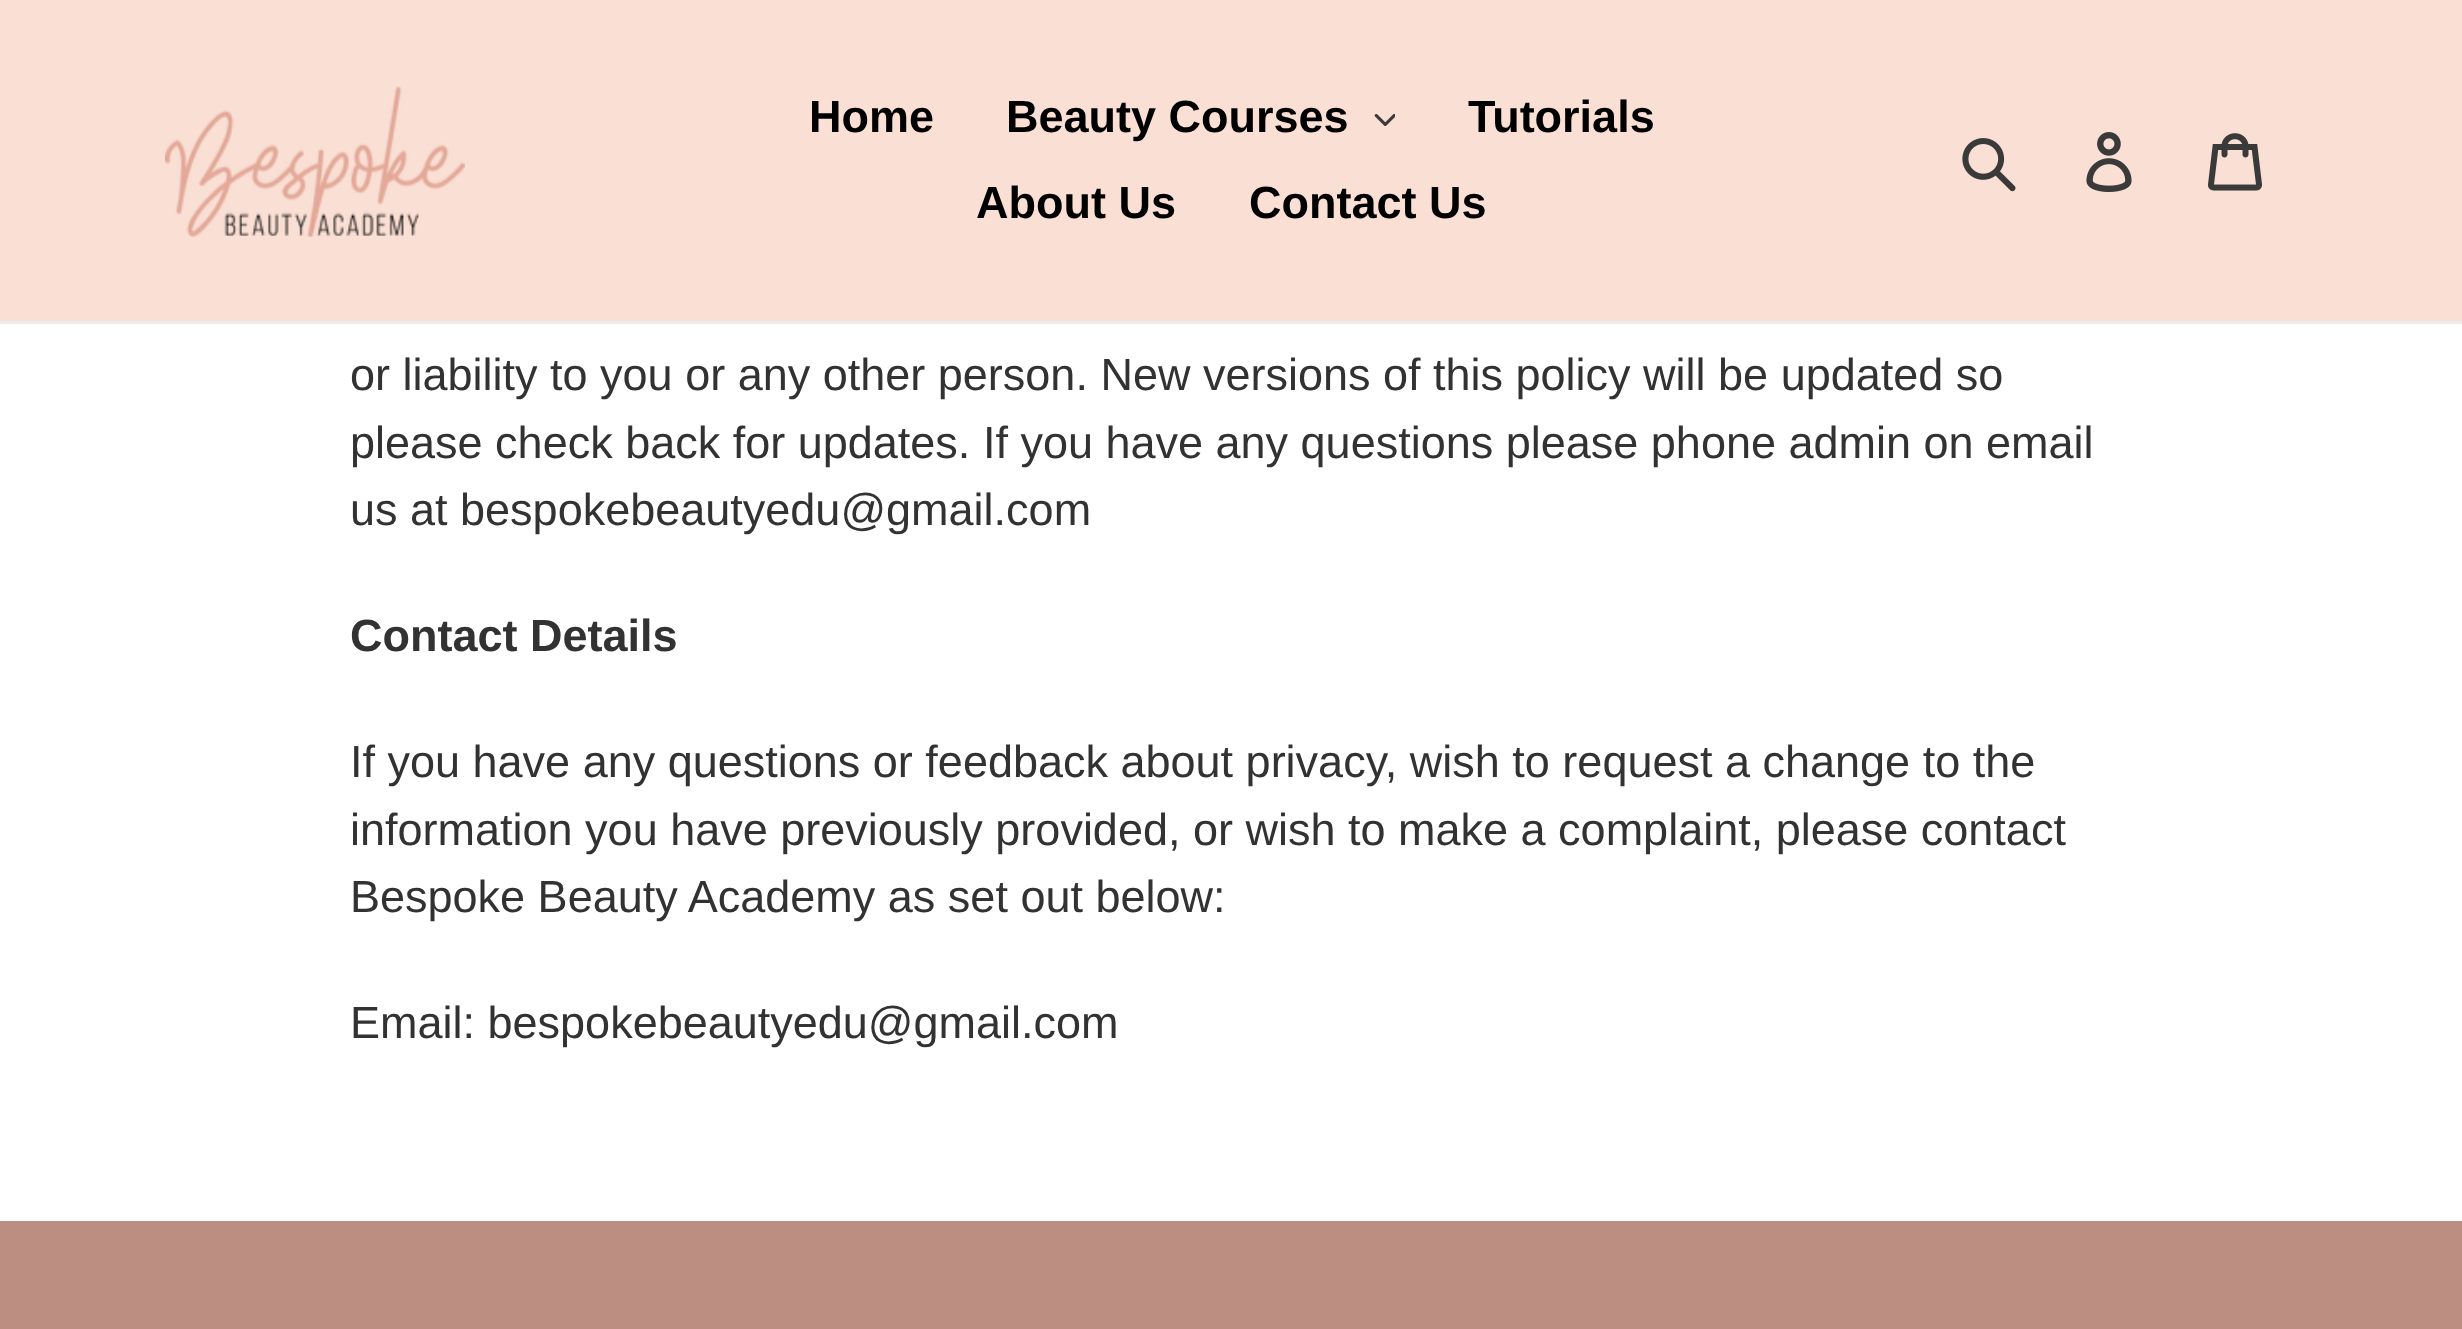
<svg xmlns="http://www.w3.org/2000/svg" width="2462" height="1329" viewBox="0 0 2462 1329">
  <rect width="100%" height="100%" fill="#ffffff"/>
  <rect x="0" y="0" width="2462" height="321" fill="#fadfd5"/>
  <rect x="0" y="321" width="2462" height="3" fill="#ebebeb"/>
  <image x="165" y="86" width="300" height="151" href="img1.png"/>
  <text x="809" y="132" font-family="Liberation Sans" font-size="45" font-weight="bold" fill="#000000">Home</text>
  <text x="1006" y="132" font-family="Liberation Sans" font-size="45" font-weight="bold" fill="#000000">Beauty Courses</text>
  <image x="1374" y="114" width="21" height="12" href="img2.png"/>
  <text x="1468" y="132" font-family="Liberation Sans" font-size="45" font-weight="bold" fill="#000000">Tutorials</text>
  <text x="976" y="218" font-family="Liberation Sans" font-size="45" font-weight="bold" fill="#000000">About Us</text>
  <text x="1249" y="218" font-family="Liberation Sans" font-size="45" font-weight="bold" fill="#000000">Contact Us</text>
  <image x="1962" y="138" width="54" height="54" href="img3.png"/>
  <image x="2086" y="132" width="46" height="60" href="img4.png"/>
  <image x="2208" y="133" width="54" height="58" href="img5.png"/>
  <text x="350" y="390" font-family="Liberation Sans" font-size="45" fill="#333232">or liability to you or any other person. New versions of this policy will be updated so</text>
  <text x="350" y="458" font-family="Liberation Sans" font-size="45" fill="#333232">please check back for updates. If you have any questions please phone admin on email</text>
  <text x="350" y="525" font-family="Liberation Sans" font-size="45" fill="#333232">us at bespokebeautyedu@gmail.com</text>
  <text x="350" y="651" font-family="Liberation Sans" font-size="45" font-weight="bold" fill="#333232">Contact Details</text>
  <text x="350" y="777" font-family="Liberation Sans" font-size="45" fill="#333232">If you have any questions or feedback about privacy, wish to request a change to the</text>
  <text x="350" y="845" font-family="Liberation Sans" font-size="45" fill="#333232">information you have previously provided, or wish to make a complaint, please contact</text>
  <text x="350" y="912" font-family="Liberation Sans" font-size="45" fill="#333232">Bespoke Beauty Academy as set out below:</text>
  <text x="350" y="1038" font-family="Liberation Sans" font-size="45" fill="#333232">Email: bespokebeautyedu@gmail.com</text>
  <rect x="0" y="1221" width="2462" height="108" fill="#bc8e81"/>
</svg>
